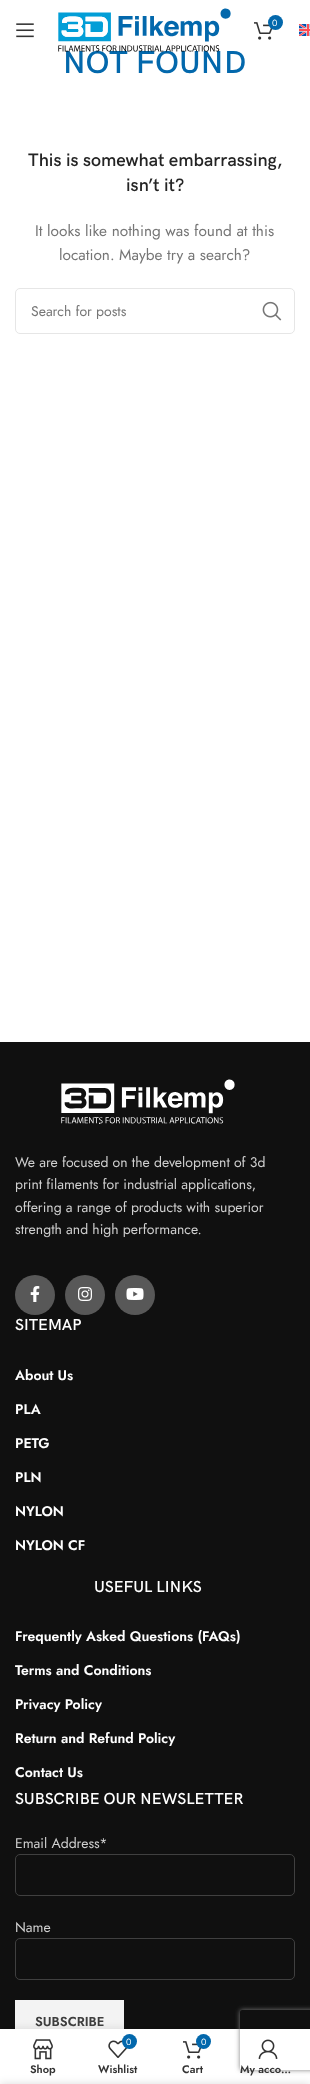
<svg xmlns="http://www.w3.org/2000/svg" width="310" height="2084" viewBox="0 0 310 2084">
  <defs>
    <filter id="blur1" x="-50%" y="-200%" width="200%" height="500%"><feGaussianBlur stdDeviation="4.5"/></filter>
    <clipPath id="clip1"><path d="M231 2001H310V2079H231ZM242 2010H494C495 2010 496 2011 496 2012V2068C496 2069 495 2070 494 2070H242C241 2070 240 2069 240 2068V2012C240 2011 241 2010 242 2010Z" clip-rule="evenodd"/></clipPath>
    <filter id="blur2" x="-50%" y="-200%" width="200%" height="500%"><feGaussianBlur stdDeviation="2.5"/></filter>
  </defs>
  <rect width="100%" height="100%" fill="#ffffff"/>
  <image x="16" y="23" width="18" height="15" href="img1.png"/>
  <text x="63" y="73" font-family="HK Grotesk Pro" font-size="32" font-weight="600" fill="#0368ac">NOT FOUND</text>
  <image x="58" y="8" width="173" height="44" href="img2.png"/>
  <image x="254" y="22" width="19" height="18" href="img3.png"/>
  <circle cx="275.5" cy="22.5" r="7.5" fill="#0368ac"/>
  <text x="272" y="26" font-family="Jost" font-size="9" fill="#ffffff">0</text>
  <image x="299" y="24" width="11" height="12" href="img4.png"/>
  <text x="28" y="166" font-family="HK Grotesk Pro" font-size="18" font-weight="600" fill="#242424">This is somewhat embarrassing,</text>
  <text x="126" y="191" font-family="HK Grotesk Pro" font-size="18" font-weight="600" fill="#242424">isn’t it?</text>
  <text x="35" y="236" font-family="Jost" font-size="15.4" fill="#767676">It looks like nothing was found at this</text>
  <text x="59" y="260" font-family="Jost" font-size="15.4" fill="#767676">location. Maybe try a search?</text>
  <rect x="15.5" y="288.5" width="279" height="45" rx="4.5" fill="none" stroke="#e6e6e6"/>
  <text x="31" y="316" font-family="Jost" font-size="14" fill="#767676">Search for posts</text>
  <image x="262" y="301" width="20" height="20" href="img5.png"/>
  <rect x="0" y="1042" width="310" height="987" fill="#101010"/>
  <image x="61" y="1079" width="174" height="45" href="img6.png"/>
  <text x="15" y="1167" font-family="Jost" font-size="14" fill="#cfcfcf">We are focused on the development of 3d</text>
  <text x="15" y="1189" font-family="Jost" font-size="14" fill="#cfcfcf">print filaments for industrial applications,</text>
  <text x="15" y="1212" font-family="Jost" font-size="14" fill="#cfcfcf">offering a range of products with superior</text>
  <text x="15" y="1234" font-family="Jost" font-size="14" fill="#cfcfcf">strength and high performance.</text>
  <circle cx="35" cy="1295" r="20" fill="#585858"/>
  <image x="30" y="1286" width="10" height="16" href="img7.png"/>
  <circle cx="85" cy="1295" r="20" fill="#585858"/>
  <image x="78" y="1287" width="14" height="14" href="img8.png"/>
  <circle cx="135" cy="1295" r="20" fill="#585858"/>
  <image x="126" y="1288" width="18" height="12" href="img9.png"/>
  <text x="15" y="1330" font-family="HK Grotesk Pro" font-size="16" font-weight="600" fill="#ffffff">SITEMAP</text>
  <text x="15" y="1380" font-family="Jost" font-size="14" font-weight="600" fill="#ffffff">About Us</text>
  <text x="15" y="1414" font-family="Jost" font-size="14" font-weight="600" fill="#ffffff">PLA</text>
  <text x="15" y="1448" font-family="Jost" font-size="14" font-weight="600" fill="#ffffff">PETG</text>
  <text x="15" y="1482" font-family="Jost" font-size="14" font-weight="600" fill="#ffffff">PLN</text>
  <text x="15" y="1516" font-family="Jost" font-size="14" font-weight="600" fill="#ffffff">NYLON</text>
  <text x="15" y="1550" font-family="Jost" font-size="14" font-weight="600" fill="#ffffff">NYLON CF</text>
  <text x="94" y="1592" font-family="HK Grotesk Pro" font-size="16" font-weight="600" fill="#ffffff">USEFUL LINKS</text>
  <text x="15" y="1641" font-family="Jost" font-size="14" font-weight="600" fill="#ffffff">Frequently Asked Questions (FAQs)</text>
  <text x="15" y="1675" font-family="Jost" font-size="14" font-weight="600" fill="#ffffff">Terms and Conditions</text>
  <text x="15" y="1709" font-family="Jost" font-size="14" font-weight="600" fill="#ffffff">Privacy Policy</text>
  <text x="15" y="1743" font-family="Jost" font-size="14" font-weight="600" fill="#ffffff">Return and Refund Policy</text>
  <text x="15" y="1777" font-family="Jost" font-size="14" font-weight="600" fill="#ffffff">Contact Us</text>
  <text x="15" y="1804" font-family="HK Grotesk Pro" font-size="16" font-weight="600" fill="#ffffff">SUBSCRIBE OUR NEWSLETTER</text>
  <text x="15" y="1848" font-family="Jost" font-size="14" fill="#cfcfcf">Email Address*</text>
  <rect x="15.5" y="1854.5" width="279" height="41" rx="4.5" fill="none" stroke="#404040"/>
  <text x="15" y="1932" font-family="Jost" font-size="14" fill="#cfcfcf">Name</text>
  <rect x="15.5" y="1938.5" width="279" height="41" rx="4.5" fill="none" stroke="#404040"/>
  <rect x="15" y="2000" width="109" height="29" fill="#f3f3f3"/>
  <text x="35" y="2026" font-family="Jost" font-size="13" font-weight="600" fill="#3e3e3e">SUBSCRIBE</text>
  <rect x="0" y="2029" width="310" height="55" fill="#000000" fill-opacity="0.12" filter="url(#blur1)"/>
  <rect x="0" y="2029" width="310" height="55" fill="#ffffff"/>
  <image x="258" y="2039" width="20" height="20" href="img12.png"/>
  <g clip-path="url(#clip1)">
    <rect x="240" y="2010" width="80" height="60" rx="2" fill="#808080" filter="url(#blur2)"/>
  </g>
  <image x="33" y="2039" width="20" height="21" href="img10.png"/>
  <text x="30" y="2073" font-family="Jost" font-size="11" font-weight="600" fill="#333333">Shop</text>
  <image x="108" y="2040" width="20" height="18" href="img11.png"/>
  <circle cx="129.5" cy="2041.5" r="7.5" fill="#0368ac"/>
  <text x="126" y="2045" font-family="Jost" font-size="9" fill="#ffffff">0</text>
  <text x="98" y="2073" font-family="Jost" font-size="11" font-weight="600" fill="#333333">Wishlist</text>
  <image x="183" y="2041" width="19" height="18" href="img3.png"/>
  <circle cx="203.5" cy="2041.5" r="7.5" fill="#0368ac"/>
  <text x="201" y="2045" font-family="Jost" font-size="9" fill="#ffffff">0</text>
  <text x="182" y="2073" font-family="Jost" font-size="11" font-weight="600" fill="#333333">Cart</text>
  <text x="240" y="2073" font-family="Jost" font-size="11" font-weight="600" fill="#333333">My acco…</text>
  <rect x="0" y="2084" width="310" height="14" fill="#000000" fill-opacity="0.14" filter="url(#blur1)"/>
</svg>
